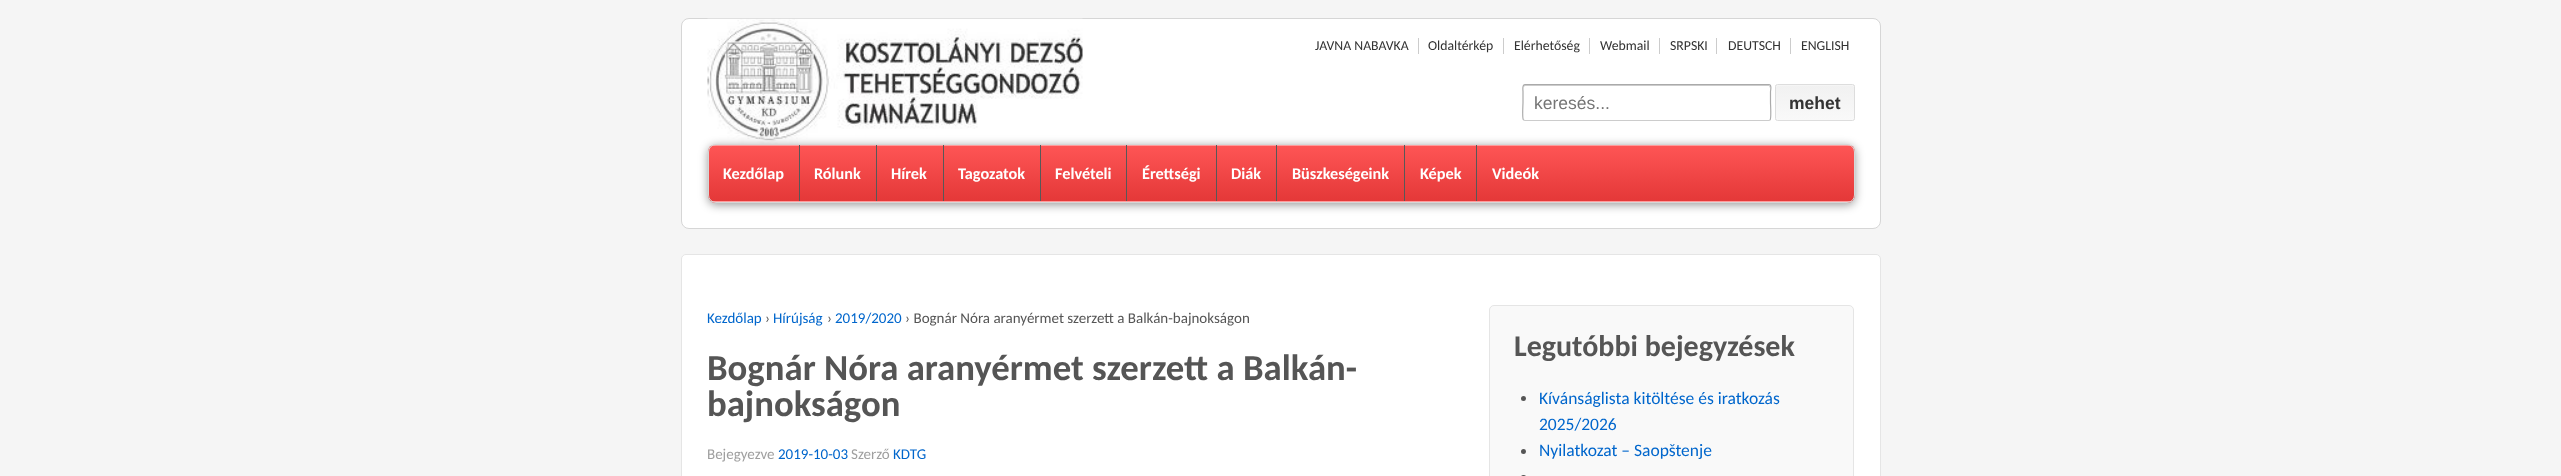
<svg xmlns="http://www.w3.org/2000/svg" width="2561" height="476" viewBox="0 0 2561 476">
  <defs>
    <clipPath id="clip1"><rect x="1775" y="84" width="80" height="37" rx="2.5"/></clipPath>
    <linearGradient id="g1" gradientUnits="userSpaceOnUse" x1="1815" y1="120" x2="1815" y2="85"><stop offset="0" stop-color="#f9f9f9"/><stop offset="1" stop-color="#f1f1f1"/></linearGradient>
    <filter id="blur1" x="-50%" y="-200%" width="200%" height="500%"><feGaussianBlur stdDeviation="5"/></filter>
    <clipPath id="clip2"><rect x="708" y="144" width="1147" height="59" rx="8"/></clipPath>
    <linearGradient id="g2" gradientUnits="userSpaceOnUse" x1="709" y1="145" x2="709" y2="201"><stop offset="0.02" stop-color="#ff9b9b"/><stop offset="0.02" stop-color="#fe5555"/><stop offset="1" stop-color="#e43838"/></linearGradient>
    <linearGradient id="g3" gradientUnits="userSpaceOnUse" x1="709" y1="201" x2="709" y2="258"><stop offset="0.02" stop-color="#ff9b9b"/><stop offset="0.02" stop-color="#fe5555"/><stop offset="1" stop-color="#e43838"/></linearGradient>
  </defs>
  <rect width="100%" height="100%" fill="#f5f5f5"/>
  <rect x="681.5" y="18.5" width="1199" height="210" rx="7.5" fill="#ffffff" stroke="#d6d6d6"/>
  <image x="707" y="18" width="376" height="126" href="img1.png"/>
  <text x="1315" y="50" font-family="Carlito" font-size="13.75" fill="#333333">JAVNA NABAVKA</text>
  <text x="1428" y="50" font-family="Carlito" font-size="13.75" fill="#333333">Oldaltérkép</text>
  <rect x="1418" y="38" width="1" height="16" fill="#cccccc"/>
  <text x="1514" y="50" font-family="Carlito" font-size="13.75" fill="#333333">Elérhetőség</text>
  <rect x="1503" y="38" width="1" height="16" fill="#cccccc"/>
  <text x="1600" y="50" font-family="Carlito" font-size="13.75" fill="#333333">Webmail</text>
  <rect x="1589" y="38" width="1" height="16" fill="#cccccc"/>
  <text x="1670" y="50" font-family="Carlito" font-size="13.75" fill="#333333">SRPSKI</text>
  <rect x="1659" y="38" width="1" height="16" fill="#cccccc"/>
  <text x="1728" y="50" font-family="Carlito" font-size="13.75" fill="#333333">DEUTSCH</text>
  <rect x="1716" y="38" width="1" height="16" fill="#cccccc"/>
  <text x="1801" y="50" font-family="Carlito" font-size="13.75" fill="#333333">ENGLISH</text>
  <rect x="1790" y="38" width="1" height="16" fill="#cccccc"/>
  <path d="M1525 86H1769L1770 88C1770 87 1770 85 1769 85H1524V88C1524 87 1524 86 1525 86Z" fill="#cccccc"/>
  <path d="M1770 120L1769 120.5H1525L1523.5 120" fill="none" stroke="#cccccc" stroke-width="1.2"/>
  <path d="M1523.5 120C1522 118.5 1523 105 1523 102.5V91.5C1523 91 1522 84.5 1525 84.5H1769C1772 84.5 1770.5 91 1770.5 91.5V102.5C1770.5 105 1771.5 118.5 1770 120" fill="none" stroke="#aaaaaa" stroke-width="1.2"/>
  <text x="1534" y="109" font-family="Liberation Sans" font-size="17.5" fill="#757575">keresés...</text>
  <g clip-path="url(#clip1)">
    <rect x="1775" y="85" width="80" height="35" fill="url(#g1)"/>
  </g>
  <path d="M1778 86H1852C1853 86 1854 87 1854 88C1854 81 1849 85 1840 85H1790C1781 85 1776 81 1776 88C1776 87 1777 86 1778 86Z" fill="#ffffff" fill-opacity="0.3"/>
  <rect x="1775.5" y="84.5" width="79" height="36" rx="2" fill="none" stroke="#dddddd"/>
  <text x="1789" y="109" font-family="Liberation Sans" font-size="17.5" font-weight="bold" fill="#333333">mehet</text>
  <rect x="708" y="146" width="1147" height="59" rx="8" fill="#000000" fill-opacity="0.4" filter="url(#blur1)"/>
  <g clip-path="url(#clip2)">
    <rect x="708" y="145" width="1147" height="56" fill="url(#g2)"/>
    <rect x="708" y="201" width="1147" height="2" fill="url(#g3)"/>
  </g>
  <rect x="708.5" y="144.5" width="1146" height="58" rx="7.5" fill="none" stroke="#d6d6d6"/>
  <text x="723" y="179" font-family="Carlito" font-size="16.25" font-weight="bold" fill="#ffffff">Kezdőlap</text>
  <rect x="799" y="145" width="1" height="56" fill="#585858"/>
  <text x="814" y="179" font-family="Carlito" font-size="16.25" font-weight="bold" fill="#ffffff">Rólunk</text>
  <rect x="876" y="145" width="1" height="56" fill="#585858"/>
  <text x="891" y="179" font-family="Carlito" font-size="16.25" font-weight="bold" fill="#ffffff">Hírek</text>
  <rect x="943" y="145" width="1" height="56" fill="#585858"/>
  <text x="958" y="179" font-family="Carlito" font-size="16.25" font-weight="bold" fill="#ffffff">Tagozatok</text>
  <rect x="1040" y="145" width="1" height="56" fill="#585858"/>
  <text x="1055" y="179" font-family="Carlito" font-size="16.25" font-weight="bold" fill="#ffffff">Felvételi</text>
  <rect x="1126" y="145" width="1" height="56" fill="#585858"/>
  <text x="1142" y="179" font-family="Carlito" font-size="16.25" font-weight="bold" fill="#ffffff">Érettségi</text>
  <rect x="1216" y="145" width="1" height="56" fill="#585858"/>
  <text x="1231" y="179" font-family="Carlito" font-size="16.25" font-weight="bold" fill="#ffffff">Diák</text>
  <rect x="1276" y="145" width="1" height="56" fill="#585858"/>
  <text x="1292" y="179" font-family="Carlito" font-size="16.25" font-weight="bold" fill="#ffffff">Büszkeségeink</text>
  <rect x="1404" y="145" width="1" height="56" fill="#585858"/>
  <text x="1420" y="179" font-family="Carlito" font-size="16.25" font-weight="bold" fill="#ffffff">Képek</text>
  <rect x="1476" y="145" width="1" height="56" fill="#585858"/>
  <text x="1492" y="179" font-family="Carlito" font-size="16.25" font-weight="bold" fill="#ffffff">Videók</text>
  <rect x="681.5" y="254.5" width="1199" height="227" rx="4.5" fill="#ffffff" stroke="#e5e5e5"/>
  <text x="707" y="323" font-family="Carlito" font-size="15" fill="#0066cc">Kezdőlap</text>
  <text x="765" y="323" font-family="Carlito" font-size="15" fill="#555555">›</text>
  <text x="773" y="323" font-family="Carlito" font-size="15" fill="#0066cc">Hírújság</text>
  <text x="827" y="323" font-family="Carlito" font-size="15" fill="#555555">›</text>
  <text x="835" y="323" font-family="Carlito" font-size="15" fill="#0066cc">2019/2020</text>
  <text x="905" y="323" font-family="Carlito" font-size="15" fill="#555555">› Bognár Nóra aranyérmet szerzett a Balkán-bajnokságon</text>
  <text x="707" y="380" font-family="Carlito" font-size="36.75" font-weight="bold" fill="#555555">Bognár Nóra aranyérmet szerzett a Balkán-</text>
  <text x="707" y="416" font-family="Carlito" font-size="36.75" font-weight="bold" fill="#555555">bajnokságon</text>
  <text x="707" y="459" font-family="Carlito" font-size="15" fill="#9f9f9f">Bejegyezve</text>
  <text x="778" y="459" font-family="Carlito" font-size="15" fill="#0066cc">2019-10-03</text>
  <text x="851" y="459" font-family="Carlito" font-size="15" fill="#9f9f9f">Szerző</text>
  <text x="893" y="459" font-family="Carlito" font-size="15" fill="#0066cc">KDTG</text>
  <rect x="1489.5" y="305.5" width="364" height="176" rx="4.5" fill="#f9f9f9" stroke="#e5e5e5"/>
  <text x="1514" y="356" font-family="Carlito" font-size="30" font-weight="bold" fill="#555555">Legutóbbi bejegyzések</text>
  <circle cx="1523.5" cy="398.5" r="2.5" fill="#555555"/>
  <text x="1539" y="404" font-family="Carlito" font-size="17.5" fill="#0066cc">Kívánságlista kitöltése és iratkozás</text>
  <text x="1539" y="430" font-family="Carlito" font-size="17.5" fill="#0066cc">2025/2026</text>
  <circle cx="1523.5" cy="451.5" r="2.5" fill="#555555"/>
  <text x="1539" y="456" font-family="Carlito" font-size="17.5" fill="#0066cc">Nyilatkozat – Saopštenje</text>
  <rect x="1521" y="475" width="5" height="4" rx="2.5" fill="#555555"/>
</svg>
